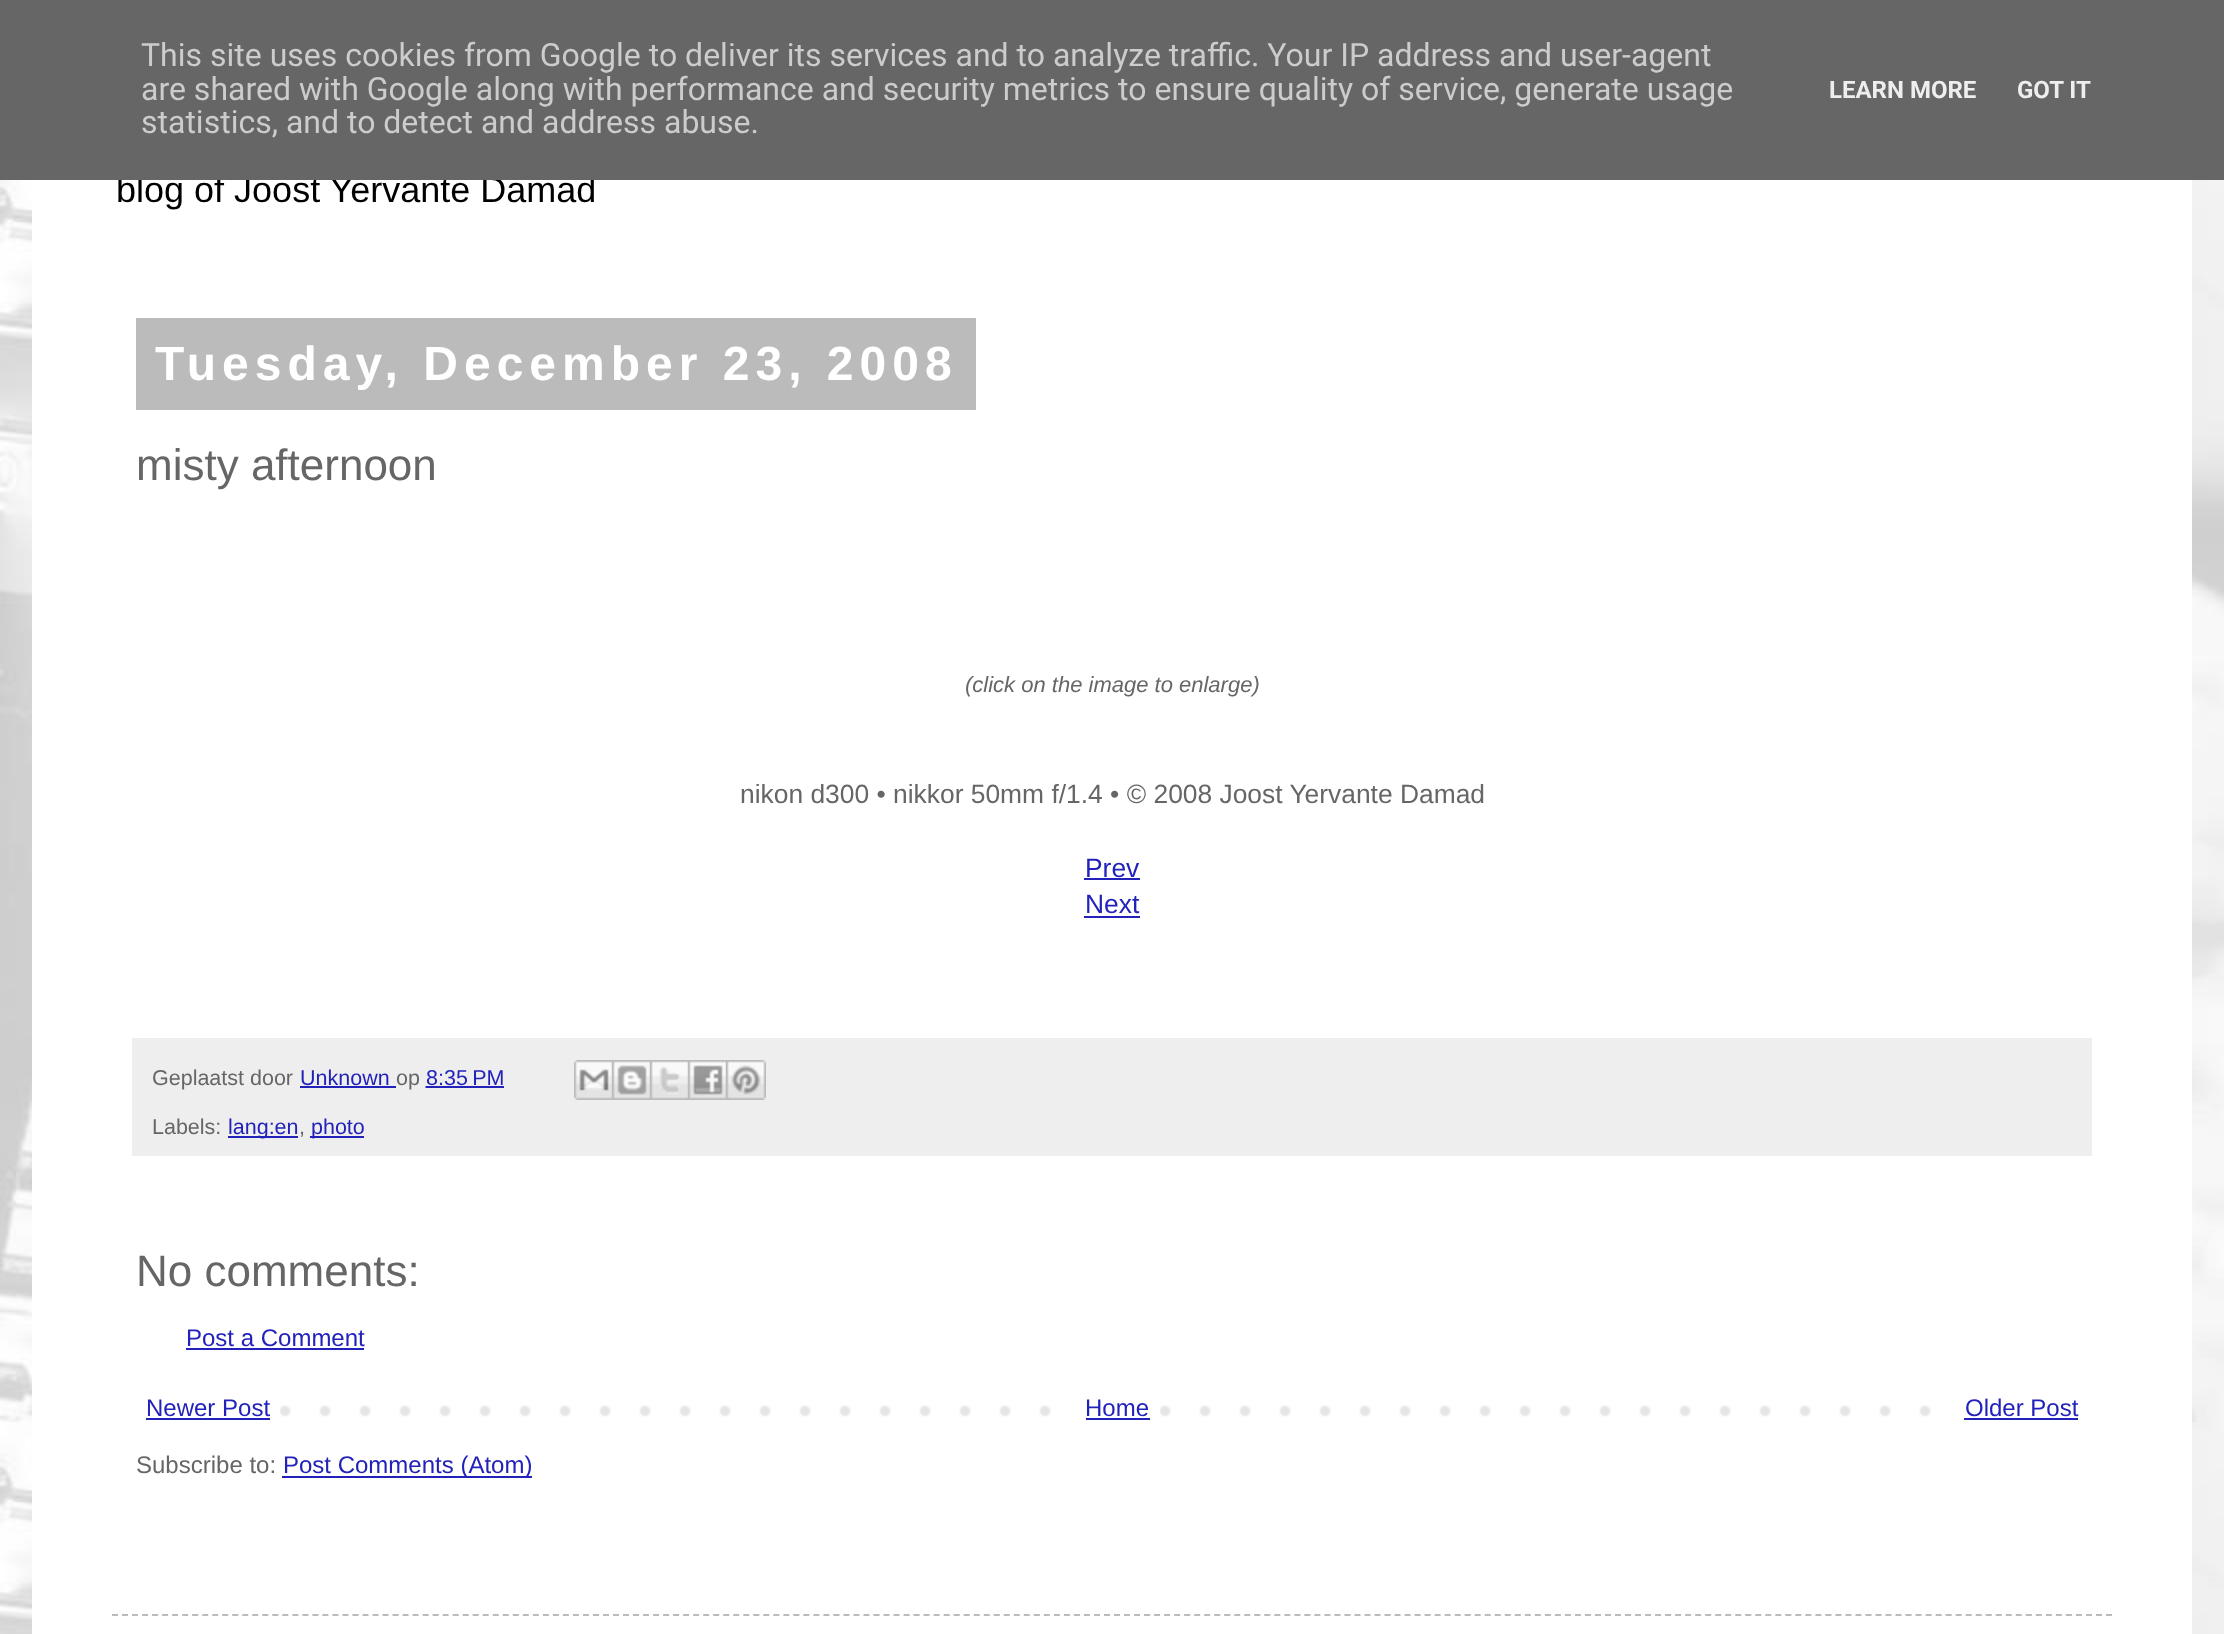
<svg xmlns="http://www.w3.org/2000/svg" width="2224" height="1634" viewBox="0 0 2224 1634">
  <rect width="100%" height="100%" fill="#ffffff"/>
  <image x="0" y="670" width="2224" height="964" href="img1.png"/>
  <image x="0" y="180" width="2224" height="490" href="img8.png"/>
  <rect x="32" y="180" width="2160" height="1454" fill="#ffffff"/>
  <text x="116" y="202" font-family="Liberation Sans" font-size="36" fill="#000000">blog of Joost Yervante Damad</text>
  <rect x="0" y="0" width="2224" height="180" fill="#666666"/>
  <text x="141" y="66" font-family="Roboto" font-size="32" fill="#cccccc">This site uses cookies from Google to deliver its services and to analyze traffic. Your IP address and user-agent</text>
  <text x="141" y="100" font-family="Roboto" font-size="32" fill="#cccccc">are shared with Google along with performance and security metrics to ensure quality of service, generate usage</text>
  <text x="141" y="133" font-family="Roboto" font-size="32" fill="#cccccc">statistics, and to detect and address abuse.</text>
  <text x="1829" y="98" font-family="Roboto" font-size="24" font-weight="bold" fill="#eeeeee">LEARN MORE</text>
  <text x="2017" y="98" font-family="Roboto" font-size="24" font-weight="bold" fill="#eeeeee">GOT IT</text>
  <rect x="136" y="318" width="840" height="92" fill="#bbbbbb"/>
  <text x="155" y="380" font-family="Liberation Sans" font-size="48" font-weight="bold" letter-spacing="6" fill="#ffffff">Tuesday, December 23, 2008</text>
  <text x="136" y="480" font-family="Liberation Sans" font-size="44" fill="#666666">misty afternoon</text>
  <text x="965" y="692" font-family="Liberation Sans" font-size="22" font-style="italic" fill="#666666">(click on the image to enlarge)</text>
  <text x="740" y="803" font-family="Liberation Sans" font-size="26.4" fill="#666666">nikon d300 • nikkor 50mm f/1.4 • © 2008 Joost Yervante Damad</text>
  <text x="1085" y="877" font-family="Liberation Sans" font-size="26.4" fill="#2222bb">Prev</text>
  <rect x="1084" y="878" width="56" height="2" fill="#2222bb"/>
  <text x="1085" y="913" font-family="Liberation Sans" font-size="26.4" fill="#2222bb">Next</text>
  <rect x="1084" y="916" width="56" height="2" fill="#2222bb"/>
  <rect x="132" y="1038" width="1960" height="118" fill="#eeeeee"/>
  <text x="152" y="1085" font-family="Liberation Sans" font-size="21.5" fill="#666666">Geplaatst door</text>
  <text x="300" y="1085" font-family="Liberation Sans" font-size="21.5" fill="#2222bb">Unknown</text>
  <rect x="300" y="1086" width="96" height="2" fill="#2222bb"/>
  <text x="396" y="1085" font-family="Liberation Sans" font-size="21.5" fill="#666666">op</text>
  <path d="M425.5 1087H504.5" fill="none" stroke="#2222bb" stroke-width="2" stroke-dasharray="2 2"/>
  <rect x="426" y="1086" width="78" height="2" fill="#2222bb"/>
  <text x="426" y="1085" font-family="Liberation Sans" font-size="21.5" fill="#2222bb">8:35 PM</text>
  <image x="574" y="1060" width="38" height="40" href="img2.png"/>
  <image x="612" y="1060" width="38" height="40" href="img3.png"/>
  <image x="650" y="1060" width="38" height="40" href="img4.png"/>
  <image x="688" y="1060" width="38" height="40" href="img5.png"/>
  <image x="726" y="1060" width="40" height="40" href="img6.png"/>
  <text x="152" y="1134" font-family="Liberation Sans" font-size="21.5" fill="#666666">Labels:</text>
  <rect x="228" y="1136" width="70" height="2" fill="#2222bb"/>
  <text x="228" y="1134" font-family="Liberation Sans" font-size="21.5" fill="#2222bb">lang:en</text>
  <text x="299" y="1134" font-family="Liberation Sans" font-size="21.5" fill="#666666">,</text>
  <rect x="310" y="1136" width="54" height="2" fill="#2222bb"/>
  <text x="311" y="1134" font-family="Liberation Sans" font-size="21.5" fill="#2222bb">photo</text>
  <text x="136" y="1286" font-family="Liberation Sans" font-size="44" fill="#666666">No comments:</text>
  <text x="186" y="1346" font-family="Liberation Sans" font-size="24" fill="#2222bb">Post a Comment</text>
  <rect x="186" y="1348" width="178" height="2" fill="#2222bb"/>
  <image x="280" y="1405" width="1651" height="12" href="img7.png"/>
  <text x="146" y="1416" font-family="Liberation Sans" font-size="24" fill="#2222bb">Newer Post</text>
  <rect x="146" y="1418" width="124" height="2" fill="#2222bb"/>
  <rect x="1079" y="1405" width="81" height="12" fill="#ffffff"/>
  <text x="1085" y="1416" font-family="Liberation Sans" font-size="24" fill="#2222bb">Home</text>
  <rect x="1086" y="1418" width="64" height="2" fill="#2222bb"/>
  <text x="1965" y="1416" font-family="Liberation Sans" font-size="24" fill="#2222bb">Older Post</text>
  <rect x="1964" y="1418" width="114" height="2" fill="#2222bb"/>
  <text x="136" y="1473" font-family="Liberation Sans" font-size="24" fill="#666666">Subscribe to:</text>
  <rect x="282" y="1476" width="250" height="2" fill="#2222bb"/>
  <text x="283" y="1473" font-family="Liberation Sans" font-size="24" fill="#2222bb">Post Comments (Atom)</text>
  <path d="M112 1615H2112" fill="none" stroke="#bbbbbb" stroke-width="2" stroke-dasharray="6 4.02"/>
</svg>
